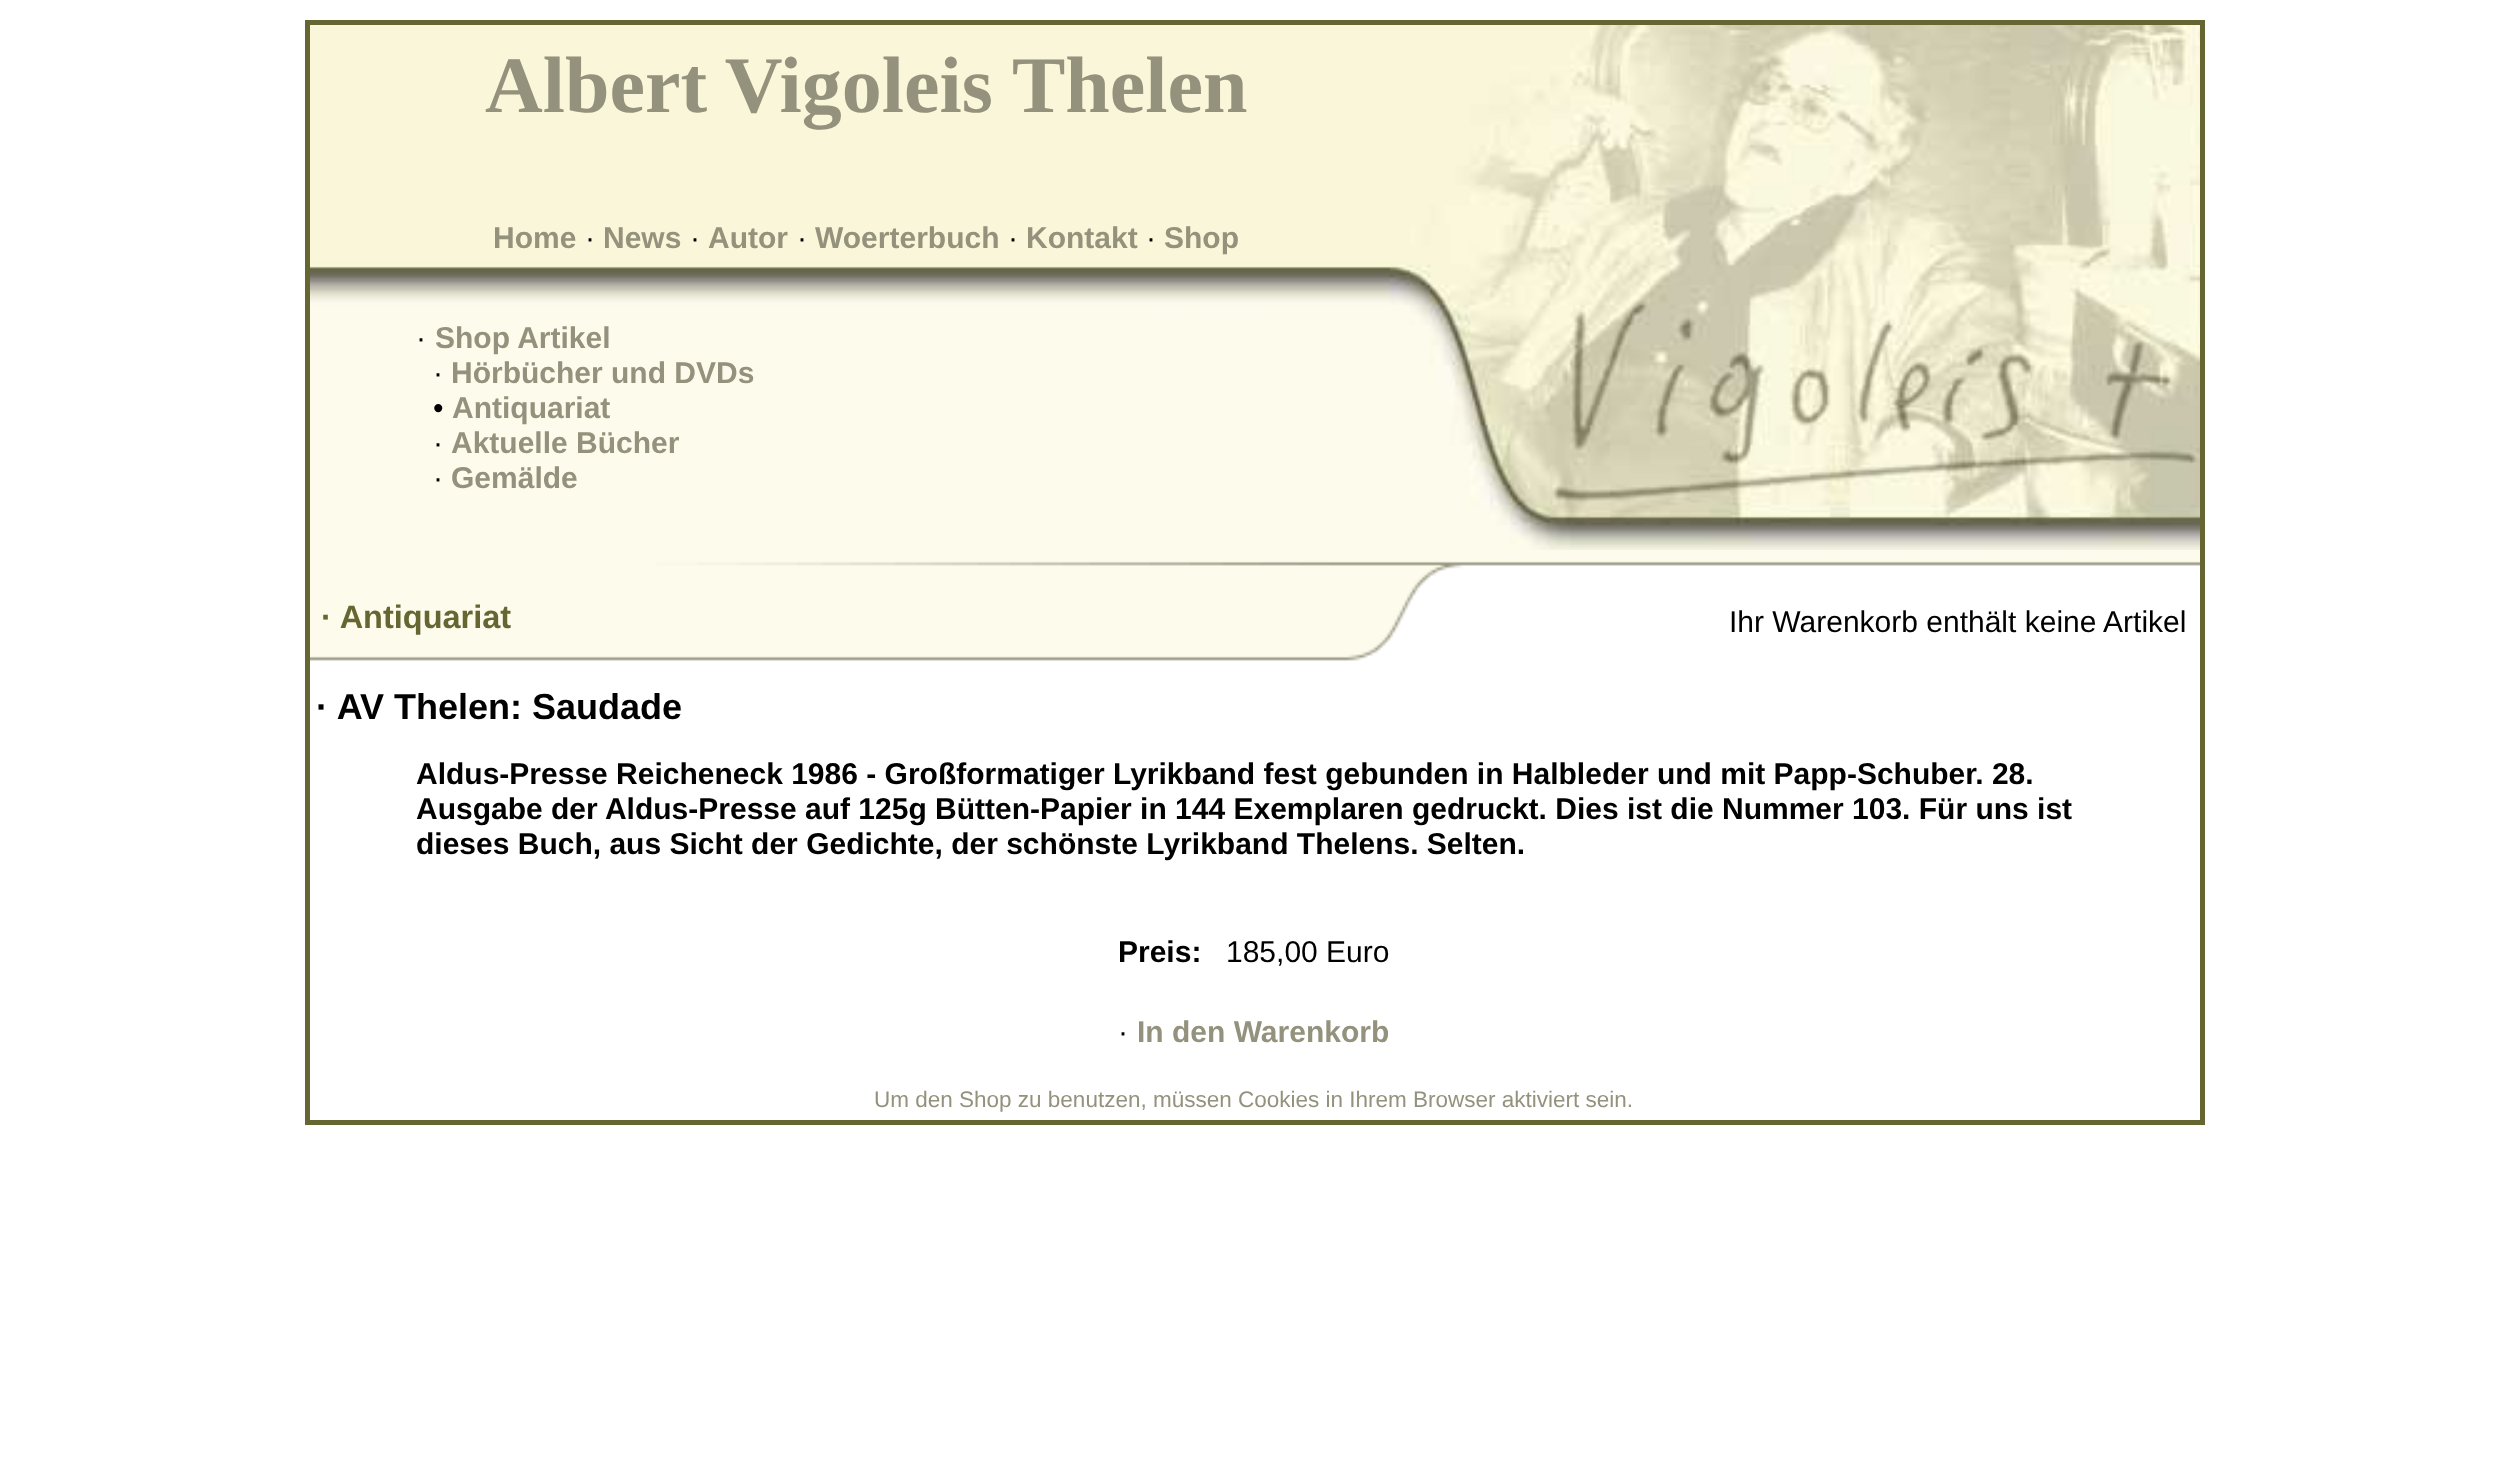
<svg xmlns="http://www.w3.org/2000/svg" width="2507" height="1459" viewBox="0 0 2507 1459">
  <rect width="100%" height="100%" fill="#ffffff"/>
  <image x="310" y="25" width="1890" height="525" href="img1.png"/>
  <rect x="307.5" y="22.5" width="1895" height="1100" fill="none" stroke="#666633" stroke-width="5"/>
  <text x="485" y="112" word-spacing="-1" font-family="Liberation Serif" font-size="80" font-weight="bold" fill="#94927c">Albert Vigoleis</text>
  <text x="1012" y="112" font-family="Liberation Serif" font-size="80" font-weight="bold" fill="#94927c">Thelen</text>
  <text x="493" y="248" font-family="Liberation Sans" font-size="30" font-weight="bold" fill="#94927c">Home</text>
  <text x="585" y="248" font-family="Liberation Sans" font-size="30" fill="#000000">·</text>
  <text x="603" y="248" font-family="Liberation Sans" font-size="30" font-weight="bold" fill="#94927c">News</text>
  <text x="690" y="248" font-family="Liberation Sans" font-size="30" fill="#000000">·</text>
  <text x="708" y="248" font-family="Liberation Sans" font-size="30" font-weight="bold" fill="#94927c">Autor</text>
  <text x="797" y="248" font-family="Liberation Sans" font-size="30" fill="#000000">·</text>
  <text x="815" y="248" font-family="Liberation Sans" font-size="30" font-weight="bold" fill="#94927c">Woerterbuch</text>
  <text x="1008" y="248" font-family="Liberation Sans" font-size="30" fill="#000000">·</text>
  <text x="1026" y="248" font-family="Liberation Sans" font-size="30" font-weight="bold" fill="#94927c">Kontakt</text>
  <text x="1146" y="248" font-family="Liberation Sans" font-size="30" fill="#000000">·</text>
  <text x="1164" y="248" font-family="Liberation Sans" font-size="30" font-weight="bold" fill="#94927c">Shop</text>
  <text x="416" y="348" font-family="Liberation Sans" font-size="30" fill="#000000">·</text>
  <text x="435" y="348" font-family="Liberation Sans" font-size="30" font-weight="bold" fill="#94927c">Shop Artikel</text>
  <text x="433" y="383" font-family="Liberation Sans" font-size="30" fill="#000000">·</text>
  <text x="451" y="383" font-family="Liberation Sans" font-size="30" font-weight="bold" fill="#94927c">Hörbücher und DVDs</text>
  <text x="433" y="418" font-family="Liberation Sans" font-size="30" fill="#000000">•</text>
  <text x="452" y="418" font-family="Liberation Sans" font-size="30" font-weight="bold" fill="#94927c">Antiquariat</text>
  <text x="433" y="453" font-family="Liberation Sans" font-size="30" fill="#000000">·</text>
  <text x="451" y="453" font-family="Liberation Sans" font-size="30" font-weight="bold" fill="#94927c">Aktuelle Bücher</text>
  <text x="433" y="488" font-family="Liberation Sans" font-size="30" fill="#000000">·</text>
  <text x="451" y="488" font-family="Liberation Sans" font-size="30" font-weight="bold" fill="#94927c">Gemälde</text>
  <image x="310" y="550" width="1890" height="111" href="img2.png"/>
  <text x="321" y="628" font-family="Liberation Sans" font-size="32.5" font-weight="bold" fill="#666633">· Antiquariat</text>
  <text x="1729" y="632" font-family="Liberation Sans" font-size="30" fill="#000000">Ihr Warenkorb enthält keine Artikel</text>
  <text x="316" y="719" font-family="Liberation Sans" font-size="36" font-weight="bold" fill="#000000">· AV Thelen: Saudade</text>
  <text x="416" y="784" font-family="Liberation Sans" font-size="30" font-weight="bold" fill="#000000">Aldus-Presse Reicheneck 1986 - Großformatiger Lyrikband fest gebunden in Halbleder und mit Papp-Schuber. 28.</text>
  <text x="416" y="819" font-family="Liberation Sans" font-size="30" font-weight="bold" fill="#000000">Ausgabe der Aldus-Presse auf 125g Bütten-Papier in 144 Exemplaren gedruckt. Dies ist die Nummer 103. Für uns ist</text>
  <text x="416" y="854" font-family="Liberation Sans" font-size="30" font-weight="bold" fill="#000000">dieses Buch, aus Sicht der Gedichte, der schönste Lyrikband Thelens. Selten.</text>
  <text x="1118" y="962" font-family="Liberation Sans" font-size="30" font-weight="bold" fill="#000000">Preis:</text>
  <text x="1226" y="962" font-family="Liberation Sans" font-size="30" fill="#000000">185,00 Euro</text>
  <text x="1118" y="1042" font-family="Liberation Sans" font-size="30" fill="#000000">·</text>
  <text x="1137" y="1042" font-family="Liberation Sans" font-size="30" font-weight="bold" fill="#94927c">In den Warenkorb</text>
  <text x="874" y="1107" font-family="Liberation Sans" font-size="22.5" fill="#94927c">Um den Shop zu benutzen, müssen Cookies in Ihrem Browser aktiviert sein.</text>
</svg>
